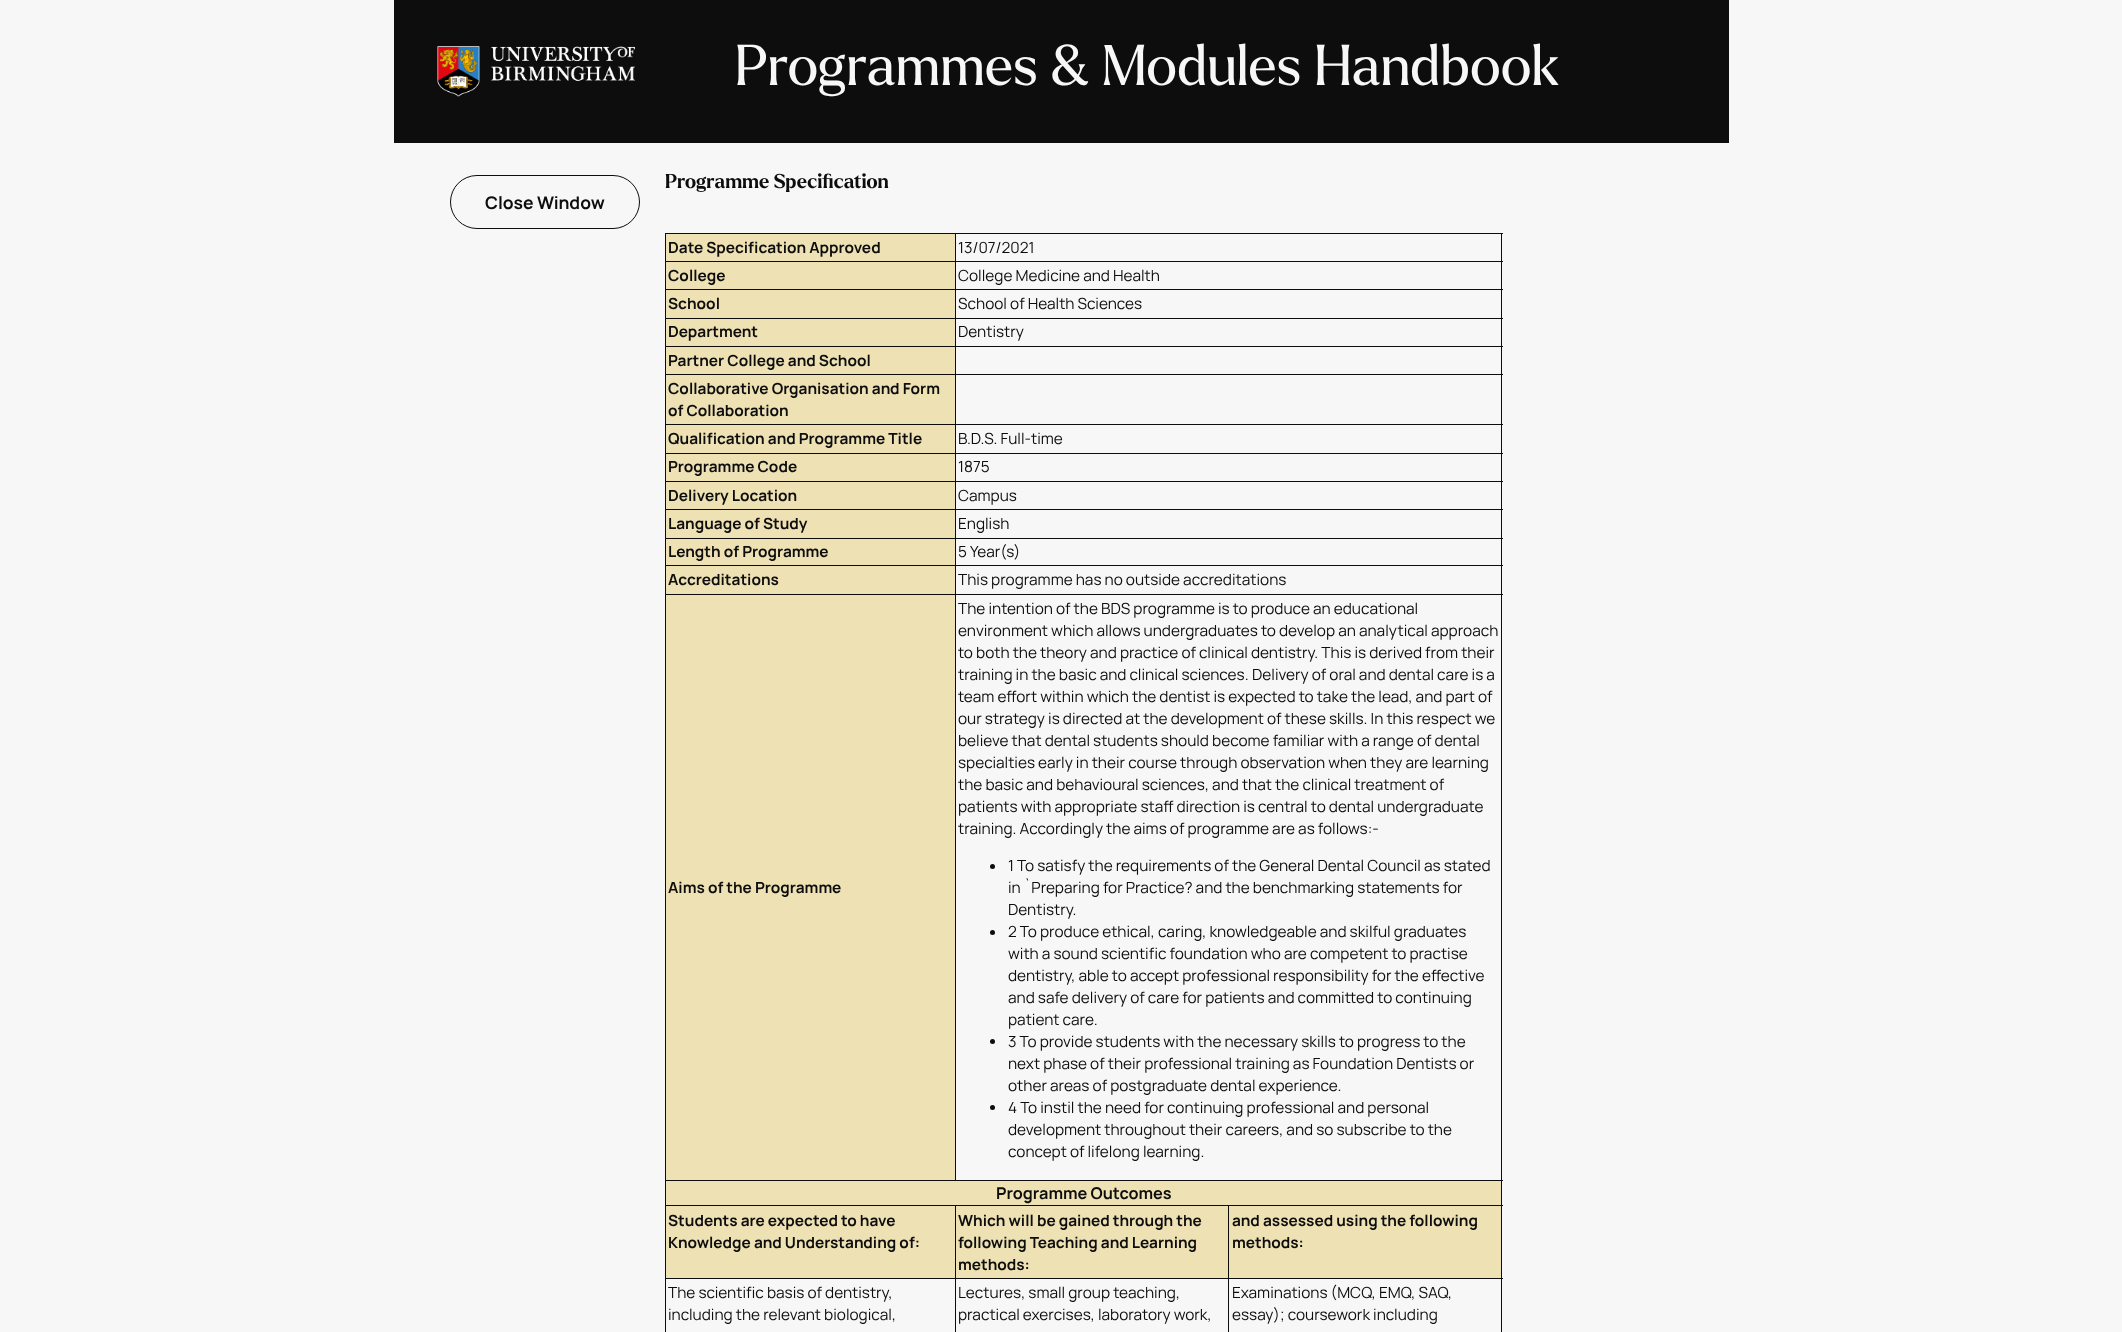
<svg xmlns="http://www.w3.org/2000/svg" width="2122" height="1332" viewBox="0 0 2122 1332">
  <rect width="100%" height="100%" fill="#f7f7f7"/>
  <rect x="394" y="0" width="1335" height="143" fill="#0d0d0d"/>
  <image x="437" y="46" width="198" height="51" href="img1.png"/>
  <text x="735" y="85" font-family="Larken" font-size="55.75" fill="#f7f7f7">Programmes &amp; Modules Handbook</text>
  <rect x="450.5" y="175.5" width="189" height="53" rx="26.5" fill="none" stroke="#0d0d0d"/>
  <text x="485" y="209" font-family="Manrope" font-size="17.5" font-weight="bold" fill="#0d0d0d">Close Window</text>
  <text x="665" y="188" font-family="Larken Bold" font-size="19.5" font-weight="bold" fill="#0d0d0d">Programme Specification</text>
  <rect x="665" y="233" width="838" height="1" fill="#0d0d0d"/>
  <rect x="1501" y="233" width="1" height="1099" fill="#0d0d0d"/>
  <rect x="665" y="233" width="1" height="1099" fill="#0d0d0d"/>
  <rect x="666" y="234" width="289" height="27" fill="#eee1b3"/>
  <text x="668" y="253" font-family="Manrope" font-size="15.4" font-weight="bold" fill="#0d0d0d">Date Specification Approved</text>
  <rect x="955" y="261" width="548" height="1" fill="#0d0d0d"/>
  <rect x="955" y="289" width="548" height="1" fill="#0d0d0d"/>
  <rect x="955" y="318" width="548" height="1" fill="#0d0d0d"/>
  <rect x="955" y="346" width="548" height="1" fill="#0d0d0d"/>
  <rect x="955" y="374" width="548" height="1" fill="#0d0d0d"/>
  <rect x="955" y="424" width="548" height="1" fill="#0d0d0d"/>
  <rect x="955" y="453" width="548" height="1" fill="#0d0d0d"/>
  <rect x="955" y="481" width="548" height="1" fill="#0d0d0d"/>
  <rect x="955" y="509" width="548" height="1" fill="#0d0d0d"/>
  <rect x="955" y="538" width="548" height="1" fill="#0d0d0d"/>
  <rect x="955" y="565" width="548" height="1" fill="#0d0d0d"/>
  <rect x="955" y="594" width="548" height="1" fill="#0d0d0d"/>
  <rect x="955" y="1180" width="548" height="1" fill="#0d0d0d"/>
  <rect x="955" y="594" width="1" height="587" fill="#0d0d0d"/>
  <rect x="665" y="594" width="291" height="1" fill="#0d0d0d"/>
  <rect x="955" y="565" width="1" height="30" fill="#0d0d0d"/>
  <rect x="665" y="565" width="291" height="1" fill="#0d0d0d"/>
  <rect x="955" y="538" width="1" height="28" fill="#0d0d0d"/>
  <rect x="665" y="538" width="291" height="1" fill="#0d0d0d"/>
  <rect x="955" y="509" width="1" height="30" fill="#0d0d0d"/>
  <rect x="665" y="509" width="291" height="1" fill="#0d0d0d"/>
  <rect x="955" y="481" width="1" height="29" fill="#0d0d0d"/>
  <rect x="665" y="481" width="291" height="1" fill="#0d0d0d"/>
  <rect x="955" y="453" width="1" height="30" fill="#0d0d0d"/>
  <rect x="665" y="453" width="291" height="1" fill="#0d0d0d"/>
  <rect x="955" y="424" width="1" height="30" fill="#0d0d0d"/>
  <rect x="665" y="424" width="291" height="1" fill="#0d0d0d"/>
  <rect x="955" y="374" width="1" height="51" fill="#0d0d0d"/>
  <rect x="665" y="374" width="291" height="1" fill="#0d0d0d"/>
  <rect x="955" y="346" width="1" height="29" fill="#0d0d0d"/>
  <rect x="665" y="346" width="291" height="1" fill="#0d0d0d"/>
  <rect x="955" y="318" width="1" height="30" fill="#0d0d0d"/>
  <rect x="665" y="318" width="291" height="1" fill="#0d0d0d"/>
  <rect x="955" y="289" width="1" height="30" fill="#0d0d0d"/>
  <rect x="665" y="289" width="291" height="1" fill="#0d0d0d"/>
  <rect x="955" y="261" width="1" height="29" fill="#0d0d0d"/>
  <rect x="665" y="261" width="291" height="1" fill="#0d0d0d"/>
  <rect x="955" y="233" width="1" height="30" fill="#0d0d0d"/>
  <text x="958" y="253" font-family="Manrope" font-size="15.4" fill="#0d0d0d">13/07/2021</text>
  <rect x="666" y="262" width="289" height="27" fill="#eee1b3"/>
  <text x="668" y="281" font-family="Manrope" font-size="15.4" font-weight="bold" fill="#0d0d0d">College</text>
  <text x="958" y="281" font-family="Manrope" font-size="15.4" fill="#0d0d0d">College Medicine and Health</text>
  <rect x="666" y="290" width="289" height="28" fill="#eee1b3"/>
  <text x="668" y="309" font-family="Manrope" font-size="15.4" font-weight="bold" fill="#0d0d0d">School</text>
  <text x="958" y="309" font-family="Manrope" font-size="15.4" fill="#0d0d0d">School of Health Sciences</text>
  <rect x="666" y="319" width="289" height="27" fill="#eee1b3"/>
  <text x="668" y="337" font-family="Manrope" font-size="15.4" font-weight="bold" fill="#0d0d0d">Department</text>
  <text x="958" y="337" font-family="Manrope" font-size="15.4" fill="#0d0d0d">Dentistry</text>
  <rect x="666" y="347" width="289" height="27" fill="#eee1b3"/>
  <text x="668" y="366" font-family="Manrope" font-size="15.4" font-weight="bold" fill="#0d0d0d">Partner College and School</text>
  <rect x="666" y="375" width="289" height="49" fill="#eee1b3"/>
  <text x="668" y="394" font-family="Manrope" font-size="15.4" font-weight="bold" fill="#0d0d0d">Collaborative Organisation and Form</text>
  <text x="668" y="416" font-family="Manrope" font-size="15.4" font-weight="bold" fill="#0d0d0d">of Collaboration</text>
  <rect x="666" y="425" width="289" height="28" fill="#eee1b3"/>
  <text x="668" y="444" font-family="Manrope" font-size="15.4" font-weight="bold" fill="#0d0d0d">Qualification and Programme Title</text>
  <text x="958" y="444" font-family="Manrope" font-size="15.4" fill="#0d0d0d">B.D.S. Full-time</text>
  <rect x="666" y="454" width="289" height="27" fill="#eee1b3"/>
  <text x="668" y="472" font-family="Manrope" font-size="15.4" font-weight="bold" fill="#0d0d0d">Programme Code</text>
  <text x="958" y="472" font-family="Manrope" font-size="15.4" fill="#0d0d0d">1875</text>
  <rect x="666" y="482" width="289" height="27" fill="#eee1b3"/>
  <text x="668" y="501" font-family="Manrope" font-size="15.4" font-weight="bold" fill="#0d0d0d">Delivery Location</text>
  <text x="958" y="501" font-family="Manrope" font-size="15.4" fill="#0d0d0d">Campus</text>
  <rect x="666" y="510" width="289" height="28" fill="#eee1b3"/>
  <text x="668" y="529" font-family="Manrope" font-size="15.4" font-weight="bold" fill="#0d0d0d">Language of Study</text>
  <text x="958" y="529" font-family="Manrope" font-size="15.4" fill="#0d0d0d">English</text>
  <rect x="666" y="539" width="289" height="26" fill="#eee1b3"/>
  <text x="668" y="557" font-family="Manrope" font-size="15.4" font-weight="bold" fill="#0d0d0d">Length of Programme</text>
  <text x="958" y="557" font-family="Manrope" font-size="15.4" fill="#0d0d0d">5 Year(s)</text>
  <rect x="666" y="566" width="289" height="28" fill="#eee1b3"/>
  <text x="668" y="585" font-family="Manrope" font-size="15.4" font-weight="bold" fill="#0d0d0d">Accreditations</text>
  <text x="958" y="585" font-family="Manrope" font-size="15.4" fill="#0d0d0d">This programme has no outside accreditations</text>
  <rect x="666" y="595" width="289" height="585" fill="#eee1b3"/>
  <rect x="665" y="1180" width="291" height="1" fill="#0d0d0d"/>
  <text x="668" y="893" font-family="Manrope" font-size="15.4" font-weight="bold" fill="#0d0d0d">Aims of the Programme</text>
  <text x="958" y="614" font-family="Manrope" font-size="15.4" fill="#0d0d0d">The intention of the BDS programme is to produce an educational</text>
  <text x="958" y="636" font-family="Manrope" font-size="15.4" fill="#0d0d0d">environment which allows undergraduates to develop an analytical approach</text>
  <text x="958" y="658" font-family="Manrope" font-size="15.4" fill="#0d0d0d">to both the theory and practice of clinical dentistry. This is derived from their</text>
  <text x="958" y="680" font-family="Manrope" font-size="15.4" fill="#0d0d0d">training in the basic and clinical sciences.</text>
  <text x="1252" y="680" font-family="Manrope" font-size="15.4" fill="#0d0d0d">Delivery of oral and dental care is a</text>
  <text x="958" y="702" font-family="Manrope" font-size="15.4" fill="#0d0d0d">team effort within which the dentist is expected to take the lead, and part of</text>
  <text x="958" y="724" font-family="Manrope" font-size="15.4" fill="#0d0d0d">our strategy is directed at the development of these skills. In this respect we</text>
  <text x="958" y="746" font-family="Manrope" font-size="15.4" fill="#0d0d0d">believe that dental students should become familiar with a range of dental</text>
  <text x="958" y="768" font-family="Manrope" font-size="15.4" fill="#0d0d0d">specialties early in their course through observation when they are learning</text>
  <text x="958" y="790" font-family="Manrope" font-size="15.4" fill="#0d0d0d">the basic and behavioural sciences, and that the clinical treatment of</text>
  <text x="958" y="812" font-family="Manrope" font-size="15.4" fill="#0d0d0d">patients with appropriate staff direction is central to dental undergraduate</text>
  <text x="958" y="834" font-family="Manrope" font-size="15.4" fill="#0d0d0d">training. Accordingly the aims of programme are as follows:-</text>
  <circle cx="992.5" cy="866.5" r="2.5" fill="#0d0d0d"/>
  <text x="1008" y="871" font-family="Manrope" font-size="15.4" fill="#0d0d0d">1 To satisfy the requirements of the General Dental Council as stated</text>
  <text x="1008" y="893" font-family="Manrope" font-size="15.4" fill="#0d0d0d">in `Preparing for Practice? and the benchmarking statements for</text>
  <text x="1008" y="915" font-family="Manrope" font-size="15.4" fill="#0d0d0d">Dentistry.</text>
  <circle cx="992.5" cy="932.5" r="2.5" fill="#0d0d0d"/>
  <text x="1008" y="937" font-family="Manrope" font-size="15.4" fill="#0d0d0d">2 To produce ethical, caring, knowledgeable and skilful graduates</text>
  <text x="1008" y="959" font-family="Manrope" font-size="15.4" fill="#0d0d0d">with a sound scientific foundation who are competent to practise</text>
  <text x="1008" y="981" font-family="Manrope" font-size="15.4" fill="#0d0d0d">dentistry, able to accept professional responsibility for the effective</text>
  <text x="1008" y="1003" font-family="Manrope" font-size="15.4" fill="#0d0d0d">and safe delivery of care for patients and committed to continuing</text>
  <text x="1008" y="1025" font-family="Manrope" font-size="15.4" fill="#0d0d0d">patient care.</text>
  <circle cx="992.5" cy="1041.5" r="2.5" fill="#0d0d0d"/>
  <text x="1008" y="1047" font-family="Manrope" font-size="15.4" fill="#0d0d0d">3 To provide students with the necessary skills to progress to the</text>
  <text x="1008" y="1069" font-family="Manrope" font-size="15.4" fill="#0d0d0d">next phase of their professional training as Foundation Dentists or</text>
  <text x="1008" y="1091" font-family="Manrope" font-size="15.4" fill="#0d0d0d">other areas of postgraduate dental experience.</text>
  <circle cx="992.5" cy="1107.5" r="2.5" fill="#0d0d0d"/>
  <text x="1008" y="1113" font-family="Manrope" font-size="15.4" fill="#0d0d0d">4 To instil the need for continuing professional and personal</text>
  <text x="1008" y="1135" font-family="Manrope" font-size="15.4" fill="#0d0d0d">development throughout their careers, and so subscribe to the</text>
  <text x="1008" y="1157" font-family="Manrope" font-size="15.4" fill="#0d0d0d">concept of lifelong learning.</text>
  <rect x="666" y="1181" width="835" height="24" fill="#eee1b3"/>
  <text x="996" y="1199" font-family="Manrope" font-size="16.25" font-weight="bold" fill="#0d0d0d">Programme Outcomes</text>
  <rect x="666" y="1206" width="289" height="72" fill="#eee1b3"/>
  <rect x="1228" y="1205" width="275" height="1" fill="#0d0d0d"/>
  <rect x="1228" y="1278" width="275" height="1" fill="#0d0d0d"/>
  <rect x="1228" y="1278" width="1" height="54" fill="#0d0d0d"/>
  <rect x="955" y="1278" width="274" height="1" fill="#0d0d0d"/>
  <rect x="1228" y="1205" width="1" height="74" fill="#0d0d0d"/>
  <rect x="955" y="1205" width="274" height="1" fill="#0d0d0d"/>
  <rect x="955" y="1278" width="1" height="54" fill="#0d0d0d"/>
  <rect x="665" y="1278" width="291" height="1" fill="#0d0d0d"/>
  <rect x="955" y="1205" width="1" height="74" fill="#0d0d0d"/>
  <rect x="665" y="1205" width="291" height="1" fill="#0d0d0d"/>
  <text x="668" y="1226" font-family="Manrope" font-size="15.4" font-weight="bold" fill="#0d0d0d">Students are expected to have</text>
  <text x="668" y="1248" font-family="Manrope" font-size="15.4" font-weight="bold" fill="#0d0d0d">Knowledge and Understanding of:</text>
  <rect x="956" y="1206" width="272" height="72" fill="#eee1b3"/>
  <text x="958" y="1226" font-family="Manrope" font-size="15.4" font-weight="bold" fill="#0d0d0d">Which will be gained through the</text>
  <text x="958" y="1248" font-family="Manrope" font-size="15.4" font-weight="bold" fill="#0d0d0d">following Teaching and Learning</text>
  <text x="958" y="1270" font-family="Manrope" font-size="15.4" font-weight="bold" fill="#0d0d0d">methods:</text>
  <rect x="1229" y="1206" width="272" height="72" fill="#eee1b3"/>
  <text x="1232" y="1226" font-family="Manrope" font-size="15.4" font-weight="bold" fill="#0d0d0d">and assessed using the following</text>
  <text x="1232" y="1248" font-family="Manrope" font-size="15.4" font-weight="bold" fill="#0d0d0d">methods:</text>
  <text x="668" y="1298" font-family="Manrope" font-size="15.4" fill="#0d0d0d">The scientific basis of dentistry,</text>
  <text x="668" y="1320" font-family="Manrope" font-size="15.4" fill="#0d0d0d">including the relevant biological,</text>
  <text x="958" y="1298" font-family="Manrope" font-size="15.4" fill="#0d0d0d">Lectures, small group teaching,</text>
  <text x="958" y="1320" font-family="Manrope" font-size="15.4" fill="#0d0d0d">practical exercises, laboratory work,</text>
  <text x="1232" y="1298" font-family="Manrope" font-size="15.4" fill="#0d0d0d">Examinations (MCQ, EMQ, SAQ,</text>
  <text x="1232" y="1320" font-family="Manrope" font-size="15.4" fill="#0d0d0d">essay); coursework including</text>
</svg>
